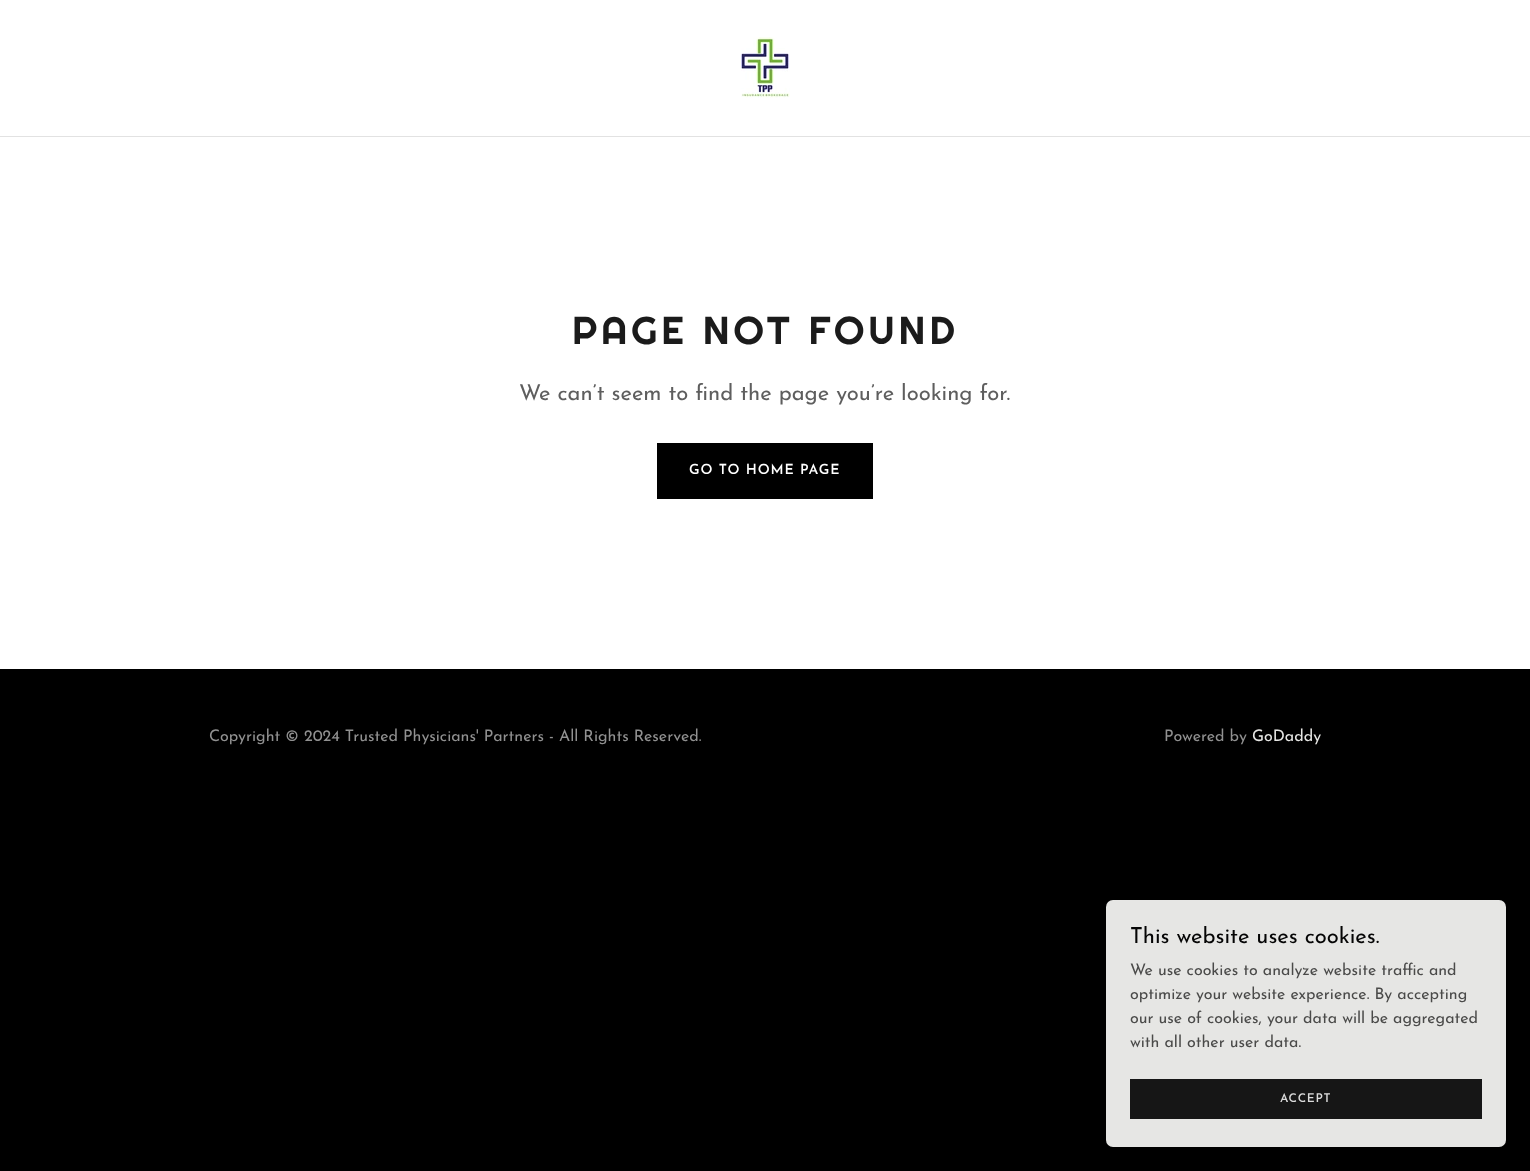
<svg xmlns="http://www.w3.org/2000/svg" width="1530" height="1171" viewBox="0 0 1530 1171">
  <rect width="100%" height="100%" fill="#000000"/>
  <rect x="0" y="0" width="1530" height="136" fill="#ffffff"/>
  <image x="741" y="37" width="49" height="61" href="img1.png"/>
  <rect x="0" y="136" width="1530" height="1" fill="#e2e2e2"/>
  <rect x="0" y="137" width="1530" height="532" fill="#ffffff"/>
  <text x="572" y="344" font-family="Righteous" font-size="39" letter-spacing="4" fill="#1b1b1b">PAGE NOT FOUND</text>
  <text x="519" y="400" font-family="Josefin Sans" font-size="22" fill="#5e5e5e">We can’t seem to find the page you’re looking for.</text>
  <rect x="657" y="443" width="216" height="56" fill="#000000"/>
  <text x="689" y="474" font-family="Josefin Sans" font-size="14" font-weight="600" letter-spacing="0.9" fill="#ffffff">GO TO HOME PAGE</text>
  <text x="209" y="741" font-family="Josefin Sans" font-size="16" fill="#919191">Copyright © 2024 Trusted Physicians' Partners - All Rights Reserved.</text>
  <text x="1164" y="741" font-family="Josefin Sans" font-size="16" fill="#919191">Powered by</text>
  <text x="1252" y="741" font-family="Josefin Sans" font-size="16" fill="#e6e6e4">GoDaddy</text>
  <rect x="1106" y="900" width="400" height="247" rx="7" fill="#e6e6e4"/>
  <text x="1130" y="943" font-family="Josefin Sans" font-size="22" fill="#050505">This website uses cookies.</text>
  <text x="1130" y="975" font-family="Josefin Sans" font-size="16" fill="#4a4a49">We use cookies to analyze website traffic and</text>
  <text x="1130" y="999" font-family="Josefin Sans" font-size="16" fill="#4a4a49">optimize your website experience. By accepting</text>
  <text x="1130" y="1023" font-family="Josefin Sans" font-size="16" fill="#4a4a49">our use of cookies, your data will be aggregated</text>
  <text x="1130" y="1047" font-family="Josefin Sans" font-size="16" fill="#4a4a49">with all other user data.</text>
  <rect x="1130" y="1079" width="352" height="40" fill="#161616"/>
  <text x="1280" y="1102" font-family="Josefin Sans" font-size="12" font-weight="600" letter-spacing="0.75" fill="#dbdbdb">ACCEPT</text>
</svg>
